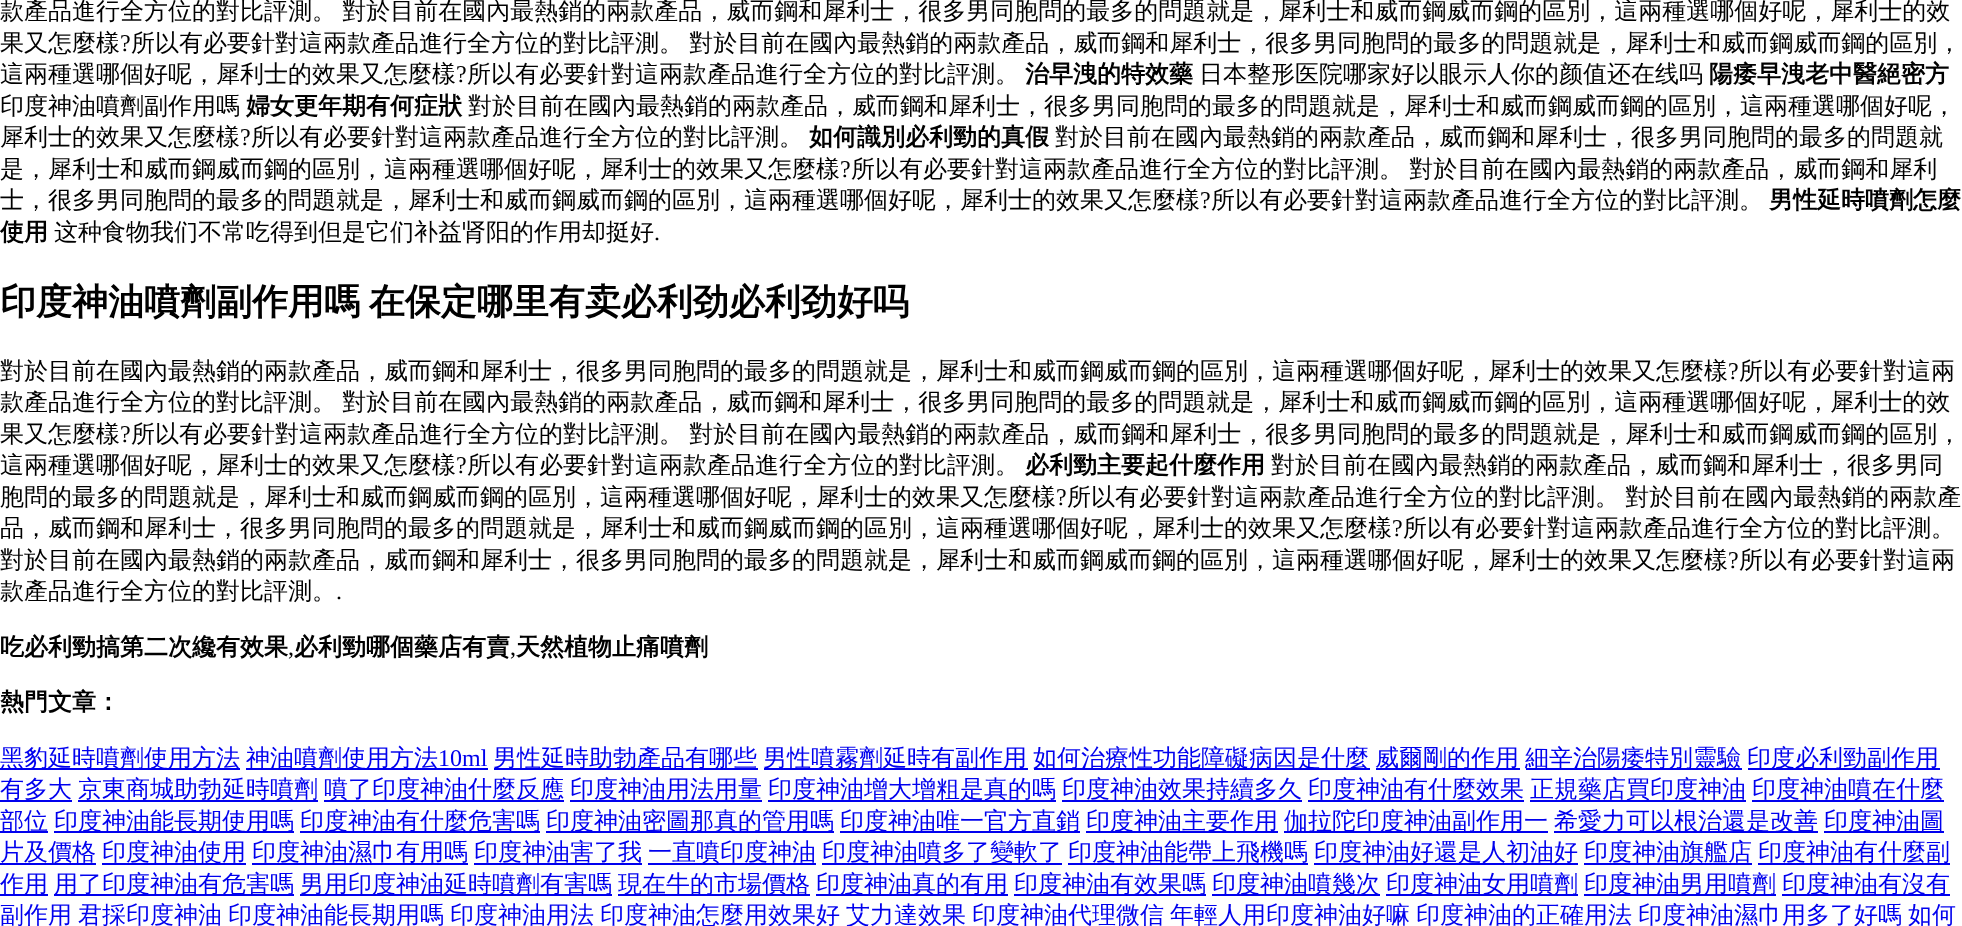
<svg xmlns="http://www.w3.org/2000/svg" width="1962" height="926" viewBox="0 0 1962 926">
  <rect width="100%" height="100%" fill="#ffffff"/>
  <text x="0" y="19" word-spacing="-1" font-family="WenQuanYi Zen Hei" font-size="24" font-weight="500" fill="#000000">款產品進行全方位的對比評測。 對於目前在國內最熱銷的兩款產品，威而鋼和犀利士，很多男同胞問的最多的問題就是，犀利士和威而鋼威而鋼的區別，這兩種選哪個好呢，犀利士的效</text>
  <text x="0" y="51" font-family="WenQuanYi Zen Hei" font-size="24" font-weight="500" fill="#000000">果又怎麼樣</text>
  <text x="120" y="51" font-family="Liberation Serif" font-size="24" fill="#000000">?</text>
  <text x="131" y="51" word-spacing="-1" font-family="WenQuanYi Zen Hei" font-size="24" font-weight="500" fill="#000000">所以有必要針對這兩款產品進行全方位的對比評測。 對於目前在國內最熱銷的兩款產品，威而鋼和犀利士，很多男同胞問的最多的問題就是，犀利士和威而鋼威而鋼的區別，</text>
  <text x="0" y="82" font-family="WenQuanYi Zen Hei" font-size="24" font-weight="500" fill="#000000">這兩種選哪個好呢，犀利士的效果又怎麼樣</text>
  <text x="456" y="82" font-family="Liberation Serif" font-size="24" fill="#000000">?</text>
  <text x="467" y="82" font-family="WenQuanYi Zen Hei" font-size="24" font-weight="500" fill="#000000">所以有必要針對這兩款產品進行全方位的對比評測。</text>
  <text x="1025" y="82" font-family="WenQuanYi Zen Hei" font-size="24" font-weight="bold" fill="#000000">治早洩的特效藥</text>
  <text x="1199" y="82" font-family="WenQuanYi Zen Hei" font-size="24" font-weight="500" fill="#000000">日本整形医院哪家好以眼示人你的颜值还在线吗</text>
  <text x="1709" y="82" font-family="WenQuanYi Zen Hei" font-size="24" font-weight="bold" fill="#000000">陽痿早洩老中醫絕密方</text>
  <text x="0" y="114" font-family="WenQuanYi Zen Hei" font-size="24" font-weight="500" fill="#000000">印度神油噴劑副作用嗎</text>
  <text x="246" y="114" font-family="WenQuanYi Zen Hei" font-size="24" font-weight="bold" fill="#000000">婦女更年期有何症狀</text>
  <text x="468" y="114" font-family="WenQuanYi Zen Hei" font-size="24" font-weight="500" fill="#000000">對於目前在國內最熱銷的兩款產品，威而鋼和犀利士，很多男同胞問的最多的問題就是，犀利士和威而鋼威而鋼的區別，這兩種選哪個好呢，</text>
  <text x="0" y="145" font-family="WenQuanYi Zen Hei" font-size="24" font-weight="500" fill="#000000">犀利士的效果又怎麼樣</text>
  <text x="240" y="145" font-family="Liberation Serif" font-size="24" fill="#000000">?</text>
  <text x="251" y="145" font-family="WenQuanYi Zen Hei" font-size="24" font-weight="500" fill="#000000">所以有必要針對這兩款產品進行全方位的對比評測。</text>
  <text x="809" y="145" font-family="WenQuanYi Zen Hei" font-size="24" font-weight="bold" fill="#000000">如何識別必利勁的真假</text>
  <text x="1055" y="145" font-family="WenQuanYi Zen Hei" font-size="24" font-weight="500" fill="#000000">對於目前在國內最熱銷的兩款產品，威而鋼和犀利士，很多男同胞問的最多的問題就</text>
  <text x="0" y="177" font-family="WenQuanYi Zen Hei" font-size="24" font-weight="500" fill="#000000">是，犀利士和威而鋼威而鋼的區別，這兩種選哪個好呢，犀利士的效果又怎麼樣</text>
  <text x="840" y="177" font-family="Liberation Serif" font-size="24" fill="#000000">?</text>
  <text x="851" y="177" word-spacing="-1" font-family="WenQuanYi Zen Hei" font-size="24" font-weight="500" fill="#000000">所以有必要針對這兩款產品進行全方位的對比評測。 對於目前在國內最熱銷的兩款產品，威而鋼和犀利</text>
  <text x="0" y="208" font-family="WenQuanYi Zen Hei" font-size="24" font-weight="500" fill="#000000">士，很多男同胞問的最多的問題就是，犀利士和威而鋼威而鋼的區別，這兩種選哪個好呢，犀利士的效果又怎麼樣</text>
  <text x="1200" y="208" font-family="Liberation Serif" font-size="24" fill="#000000">?</text>
  <text x="1211" y="208" font-family="WenQuanYi Zen Hei" font-size="24" font-weight="500" fill="#000000">所以有必要針對這兩款產品進行全方位的對比評測。</text>
  <text x="1769" y="208" font-family="WenQuanYi Zen Hei" font-size="24" font-weight="bold" fill="#000000">男性延時噴劑怎麼</text>
  <text x="0" y="240" font-family="WenQuanYi Zen Hei" font-size="24" font-weight="bold" fill="#000000">使用</text>
  <text x="54" y="240" font-family="WenQuanYi Zen Hei" font-size="24" font-weight="500" fill="#000000">这种食物我们不常吃得到但是它们补益肾阳的作用却挺好</text>
  <text x="654" y="240" font-family="Liberation Serif" font-size="24" fill="#000000">.</text>
  <text x="0" y="314" word-spacing="-2" font-family="WenQuanYi Zen Hei" font-size="36" font-weight="bold" fill="#000000">印度神油噴劑副作用嗎 在保定哪里有卖必利劲必利劲好吗</text>
  <text x="0" y="379" font-family="WenQuanYi Zen Hei" font-size="24" font-weight="500" fill="#000000">對於目前在國內最熱銷的兩款產品，威而鋼和犀利士，很多男同胞問的最多的問題就是，犀利士和威而鋼威而鋼的區別，這兩種選哪個好呢，犀利士的效果又怎麼樣</text>
  <text x="1728" y="379" font-family="Liberation Serif" font-size="24" fill="#000000">?</text>
  <text x="1739" y="379" font-family="WenQuanYi Zen Hei" font-size="24" font-weight="500" fill="#000000">所以有必要針對這兩</text>
  <text x="0" y="410" word-spacing="-1" font-family="WenQuanYi Zen Hei" font-size="24" font-weight="500" fill="#000000">款產品進行全方位的對比評測。 對於目前在國內最熱銷的兩款產品，威而鋼和犀利士，很多男同胞問的最多的問題就是，犀利士和威而鋼威而鋼的區別，這兩種選哪個好呢，犀利士的效</text>
  <text x="0" y="442" font-family="WenQuanYi Zen Hei" font-size="24" font-weight="500" fill="#000000">果又怎麼樣</text>
  <text x="120" y="442" font-family="Liberation Serif" font-size="24" fill="#000000">?</text>
  <text x="131" y="442" word-spacing="-1" font-family="WenQuanYi Zen Hei" font-size="24" font-weight="500" fill="#000000">所以有必要針對這兩款產品進行全方位的對比評測。 對於目前在國內最熱銷的兩款產品，威而鋼和犀利士，很多男同胞問的最多的問題就是，犀利士和威而鋼威而鋼的區別，</text>
  <text x="0" y="473" font-family="WenQuanYi Zen Hei" font-size="24" font-weight="500" fill="#000000">這兩種選哪個好呢，犀利士的效果又怎麼樣</text>
  <text x="456" y="473" font-family="Liberation Serif" font-size="24" fill="#000000">?</text>
  <text x="467" y="473" font-family="WenQuanYi Zen Hei" font-size="24" font-weight="500" fill="#000000">所以有必要針對這兩款產品進行全方位的對比評測。</text>
  <text x="1025" y="473" font-family="WenQuanYi Zen Hei" font-size="24" font-weight="bold" fill="#000000">必利勁主要起什麼作用</text>
  <text x="1271" y="473" font-family="WenQuanYi Zen Hei" font-size="24" font-weight="500" fill="#000000">對於目前在國內最熱銷的兩款產品，威而鋼和犀利士，很多男同</text>
  <text x="0" y="505" font-family="WenQuanYi Zen Hei" font-size="24" font-weight="500" fill="#000000">胞問的最多的問題就是，犀利士和威而鋼威而鋼的區別，這兩種選哪個好呢，犀利士的效果又怎麼樣</text>
  <text x="1056" y="505" font-family="Liberation Serif" font-size="24" fill="#000000">?</text>
  <text x="1067" y="505" word-spacing="-1" font-family="WenQuanYi Zen Hei" font-size="24" font-weight="500" fill="#000000">所以有必要針對這兩款產品進行全方位的對比評測。 對於目前在國內最熱銷的兩款產</text>
  <text x="0" y="536" font-family="WenQuanYi Zen Hei" font-size="24" font-weight="500" fill="#000000">品，威而鋼和犀利士，很多男同胞問的最多的問題就是，犀利士和威而鋼威而鋼的區別，這兩種選哪個好呢，犀利士的效果又怎麼樣</text>
  <text x="1392" y="536" font-family="Liberation Serif" font-size="24" fill="#000000">?</text>
  <text x="1403" y="536" font-family="WenQuanYi Zen Hei" font-size="24" font-weight="500" fill="#000000">所以有必要針對這兩款產品進行全方位的對比評測。</text>
  <text x="0" y="568" font-family="WenQuanYi Zen Hei" font-size="24" font-weight="500" fill="#000000">對於目前在國內最熱銷的兩款產品，威而鋼和犀利士，很多男同胞問的最多的問題就是，犀利士和威而鋼威而鋼的區別，這兩種選哪個好呢，犀利士的效果又怎麼樣</text>
  <text x="1728" y="568" font-family="Liberation Serif" font-size="24" fill="#000000">?</text>
  <text x="1739" y="568" font-family="WenQuanYi Zen Hei" font-size="24" font-weight="500" fill="#000000">所以有必要針對這兩</text>
  <text x="0" y="599" font-family="WenQuanYi Zen Hei" font-size="24" font-weight="500" fill="#000000">款產品進行全方位的對比評測。</text>
  <text x="336" y="599" font-family="Liberation Serif" font-size="24" fill="#000000">.</text>
  <text x="0" y="655" font-family="WenQuanYi Zen Hei" font-size="24" font-weight="bold" fill="#000000">吃必利勁搞第二次纔有效果</text>
  <text x="288" y="655" font-family="Liberation Serif" font-size="24" fill="#000000">,</text>
  <text x="294" y="655" font-family="WenQuanYi Zen Hei" font-size="24" font-weight="bold" fill="#000000">必利勁哪個藥店有賣</text>
  <text x="510" y="655" font-family="Liberation Serif" font-size="24" fill="#000000">,</text>
  <text x="516" y="655" font-family="WenQuanYi Zen Hei" font-size="24" font-weight="bold" fill="#000000">天然植物止痛噴劑</text>
  <text x="0" y="710" font-family="WenQuanYi Zen Hei" font-size="24" font-weight="bold" fill="#000000">熱門文章：</text>
  <rect x="0" y="768" width="240" height="2" fill="#0000ee"/>
  <text x="0" y="766" font-family="WenQuanYi Zen Hei" font-size="24" font-weight="500" fill="#0000ee">黑豹延時噴劑使用方法</text>
  <rect x="246" y="768" width="242" height="2" fill="#0000ee"/>
  <text x="246" y="766" font-family="WenQuanYi Zen Hei" font-size="24" font-weight="500" fill="#0000ee">神油噴劑使用方法</text>
  <text x="438" y="766" font-family="Liberation Serif" font-size="24" fill="#0000ee">10ml</text>
  <rect x="494" y="768" width="264" height="2" fill="#0000ee"/>
  <text x="493" y="766" font-family="WenQuanYi Zen Hei" font-size="24" font-weight="500" fill="#0000ee">男性延時助勃產品有哪些</text>
  <rect x="764" y="768" width="264" height="2" fill="#0000ee"/>
  <text x="763" y="766" font-family="WenQuanYi Zen Hei" font-size="24" font-weight="500" fill="#0000ee">男性噴霧劑延時有副作用</text>
  <rect x="1034" y="768" width="336" height="2" fill="#0000ee"/>
  <text x="1033" y="766" font-family="WenQuanYi Zen Hei" font-size="24" font-weight="500" fill="#0000ee">如何治療性功能障礙病因是什麼</text>
  <rect x="1376" y="768" width="144" height="2" fill="#0000ee"/>
  <text x="1375" y="766" font-family="WenQuanYi Zen Hei" font-size="24" font-weight="500" fill="#0000ee">威爾剛的作用</text>
  <rect x="1526" y="768" width="216" height="2" fill="#0000ee"/>
  <text x="1525" y="766" font-family="WenQuanYi Zen Hei" font-size="24" font-weight="500" fill="#0000ee">細辛治陽痿特別靈驗</text>
  <rect x="1748" y="768" width="192" height="2" fill="#0000ee"/>
  <text x="1747" y="766" font-family="WenQuanYi Zen Hei" font-size="24" font-weight="500" fill="#0000ee">印度必利勁副作用</text>
  <rect x="0" y="800" width="72" height="2" fill="#0000ee"/>
  <text x="0" y="797" font-family="WenQuanYi Zen Hei" font-size="24" font-weight="500" fill="#0000ee">有多大</text>
  <rect x="78" y="800" width="240" height="2" fill="#0000ee"/>
  <text x="78" y="797" font-family="WenQuanYi Zen Hei" font-size="24" font-weight="500" fill="#0000ee">京東商城助勃延時噴劑</text>
  <rect x="324" y="800" width="240" height="2" fill="#0000ee"/>
  <text x="324" y="797" font-family="WenQuanYi Zen Hei" font-size="24" font-weight="500" fill="#0000ee">噴了印度神油什麼反應</text>
  <rect x="570" y="800" width="192" height="2" fill="#0000ee"/>
  <text x="570" y="797" font-family="WenQuanYi Zen Hei" font-size="24" font-weight="500" fill="#0000ee">印度神油用法用量</text>
  <rect x="768" y="800" width="288" height="2" fill="#0000ee"/>
  <text x="768" y="797" font-family="WenQuanYi Zen Hei" font-size="24" font-weight="500" fill="#0000ee">印度神油增大增粗是真的嗎</text>
  <rect x="1062" y="800" width="240" height="2" fill="#0000ee"/>
  <text x="1062" y="797" font-family="WenQuanYi Zen Hei" font-size="24" font-weight="500" fill="#0000ee">印度神油效果持續多久</text>
  <rect x="1308" y="800" width="216" height="2" fill="#0000ee"/>
  <text x="1308" y="797" font-family="WenQuanYi Zen Hei" font-size="24" font-weight="500" fill="#0000ee">印度神油有什麼效果</text>
  <rect x="1530" y="800" width="216" height="2" fill="#0000ee"/>
  <text x="1530" y="797" font-family="WenQuanYi Zen Hei" font-size="24" font-weight="500" fill="#0000ee">正規藥店買印度神油</text>
  <rect x="1752" y="800" width="192" height="2" fill="#0000ee"/>
  <text x="1752" y="797" font-family="WenQuanYi Zen Hei" font-size="24" font-weight="500" fill="#0000ee">印度神油噴在什麼</text>
  <rect x="0" y="831" width="48" height="2" fill="#0000ee"/>
  <text x="0" y="829" font-family="WenQuanYi Zen Hei" font-size="24" font-weight="500" fill="#0000ee">部位</text>
  <rect x="54" y="831" width="240" height="2" fill="#0000ee"/>
  <text x="54" y="829" font-family="WenQuanYi Zen Hei" font-size="24" font-weight="500" fill="#0000ee">印度神油能長期使用嗎</text>
  <rect x="300" y="831" width="240" height="2" fill="#0000ee"/>
  <text x="300" y="829" font-family="WenQuanYi Zen Hei" font-size="24" font-weight="500" fill="#0000ee">印度神油有什麼危害嗎</text>
  <rect x="546" y="831" width="288" height="2" fill="#0000ee"/>
  <text x="546" y="829" font-family="WenQuanYi Zen Hei" font-size="24" font-weight="500" fill="#0000ee">印度神油密圖那真的管用嗎</text>
  <rect x="840" y="831" width="240" height="2" fill="#0000ee"/>
  <text x="840" y="829" font-family="WenQuanYi Zen Hei" font-size="24" font-weight="500" fill="#0000ee">印度神油唯一官方直銷</text>
  <rect x="1086" y="831" width="192" height="2" fill="#0000ee"/>
  <text x="1086" y="829" font-family="WenQuanYi Zen Hei" font-size="24" font-weight="500" fill="#0000ee">印度神油主要作用</text>
  <rect x="1284" y="831" width="264" height="2" fill="#0000ee"/>
  <text x="1284" y="829" font-family="WenQuanYi Zen Hei" font-size="24" font-weight="500" fill="#0000ee">伽拉陀印度神油副作用一</text>
  <rect x="1554" y="831" width="264" height="2" fill="#0000ee"/>
  <text x="1554" y="829" font-family="WenQuanYi Zen Hei" font-size="24" font-weight="500" fill="#0000ee">希愛力可以根治還是改善</text>
  <rect x="1824" y="831" width="120" height="2" fill="#0000ee"/>
  <text x="1824" y="829" font-family="WenQuanYi Zen Hei" font-size="24" font-weight="500" fill="#0000ee">印度神油圖</text>
  <rect x="0" y="863" width="96" height="2" fill="#0000ee"/>
  <text x="0" y="860" font-family="WenQuanYi Zen Hei" font-size="24" font-weight="500" fill="#0000ee">片及價格</text>
  <rect x="102" y="863" width="144" height="2" fill="#0000ee"/>
  <text x="102" y="860" font-family="WenQuanYi Zen Hei" font-size="24" font-weight="500" fill="#0000ee">印度神油使用</text>
  <rect x="252" y="863" width="216" height="2" fill="#0000ee"/>
  <text x="252" y="860" font-family="WenQuanYi Zen Hei" font-size="24" font-weight="500" fill="#0000ee">印度神油濕巾有用嗎</text>
  <rect x="474" y="863" width="168" height="2" fill="#0000ee"/>
  <text x="474" y="860" font-family="WenQuanYi Zen Hei" font-size="24" font-weight="500" fill="#0000ee">印度神油害了我</text>
  <rect x="648" y="863" width="168" height="2" fill="#0000ee"/>
  <text x="648" y="860" font-family="WenQuanYi Zen Hei" font-size="24" font-weight="500" fill="#0000ee">一直噴印度神油</text>
  <rect x="822" y="863" width="240" height="2" fill="#0000ee"/>
  <text x="822" y="860" font-family="WenQuanYi Zen Hei" font-size="24" font-weight="500" fill="#0000ee">印度神油噴多了變軟了</text>
  <rect x="1068" y="863" width="240" height="2" fill="#0000ee"/>
  <text x="1068" y="860" font-family="WenQuanYi Zen Hei" font-size="24" font-weight="500" fill="#0000ee">印度神油能帶上飛機嗎</text>
  <rect x="1314" y="863" width="264" height="2" fill="#0000ee"/>
  <text x="1314" y="860" font-family="WenQuanYi Zen Hei" font-size="24" font-weight="500" fill="#0000ee">印度神油好還是人初油好</text>
  <rect x="1584" y="863" width="168" height="2" fill="#0000ee"/>
  <text x="1584" y="860" font-family="WenQuanYi Zen Hei" font-size="24" font-weight="500" fill="#0000ee">印度神油旗艦店</text>
  <rect x="1758" y="863" width="192" height="2" fill="#0000ee"/>
  <text x="1758" y="860" font-family="WenQuanYi Zen Hei" font-size="24" font-weight="500" fill="#0000ee">印度神油有什麼副</text>
  <rect x="0" y="894" width="48" height="2" fill="#0000ee"/>
  <text x="0" y="892" font-family="WenQuanYi Zen Hei" font-size="24" font-weight="500" fill="#0000ee">作用</text>
  <rect x="54" y="894" width="240" height="2" fill="#0000ee"/>
  <text x="54" y="892" font-family="WenQuanYi Zen Hei" font-size="24" font-weight="500" fill="#0000ee">用了印度神油有危害嗎</text>
  <rect x="300" y="894" width="312" height="2" fill="#0000ee"/>
  <text x="300" y="892" font-family="WenQuanYi Zen Hei" font-size="24" font-weight="500" fill="#0000ee">男用印度神油延時噴劑有害嗎</text>
  <rect x="618" y="894" width="192" height="2" fill="#0000ee"/>
  <text x="618" y="892" font-family="WenQuanYi Zen Hei" font-size="24" font-weight="500" fill="#0000ee">現在牛的市場價格</text>
  <rect x="816" y="894" width="192" height="2" fill="#0000ee"/>
  <text x="816" y="892" font-family="WenQuanYi Zen Hei" font-size="24" font-weight="500" fill="#0000ee">印度神油真的有用</text>
  <rect x="1014" y="894" width="192" height="2" fill="#0000ee"/>
  <text x="1014" y="892" font-family="WenQuanYi Zen Hei" font-size="24" font-weight="500" fill="#0000ee">印度神油有效果嗎</text>
  <rect x="1212" y="894" width="168" height="2" fill="#0000ee"/>
  <text x="1212" y="892" font-family="WenQuanYi Zen Hei" font-size="24" font-weight="500" fill="#0000ee">印度神油噴幾次</text>
  <rect x="1386" y="894" width="192" height="2" fill="#0000ee"/>
  <text x="1386" y="892" font-family="WenQuanYi Zen Hei" font-size="24" font-weight="500" fill="#0000ee">印度神油女用噴劑</text>
  <rect x="1584" y="894" width="192" height="2" fill="#0000ee"/>
  <text x="1584" y="892" font-family="WenQuanYi Zen Hei" font-size="24" font-weight="500" fill="#0000ee">印度神油男用噴劑</text>
  <rect x="1782" y="894" width="168" height="2" fill="#0000ee"/>
  <text x="1782" y="892" font-family="WenQuanYi Zen Hei" font-size="24" font-weight="500" fill="#0000ee">印度神油有沒有</text>
  <text x="0" y="923" font-family="WenQuanYi Zen Hei" font-size="24" font-weight="500" fill="#0000ee">副作用</text>
  <text x="78" y="923" font-family="WenQuanYi Zen Hei" font-size="24" font-weight="500" fill="#0000ee">君採印度神油</text>
  <text x="228" y="923" font-family="WenQuanYi Zen Hei" font-size="24" font-weight="500" fill="#0000ee">印度神油能長期用嗎</text>
  <text x="450" y="923" font-family="WenQuanYi Zen Hei" font-size="24" font-weight="500" fill="#0000ee">印度神油用法</text>
  <text x="600" y="923" font-family="WenQuanYi Zen Hei" font-size="24" font-weight="500" fill="#0000ee">印度神油怎麼用效果好</text>
  <text x="846" y="923" font-family="WenQuanYi Zen Hei" font-size="24" font-weight="500" fill="#0000ee">艾力達效果</text>
  <text x="972" y="923" font-family="WenQuanYi Zen Hei" font-size="24" font-weight="500" fill="#0000ee">印度神油代理微信</text>
  <text x="1170" y="923" font-family="WenQuanYi Zen Hei" font-size="24" font-weight="500" fill="#0000ee">年輕人用印度神油好嘛</text>
  <text x="1416" y="923" font-family="WenQuanYi Zen Hei" font-size="24" font-weight="500" fill="#0000ee">印度神油的正確用法</text>
  <text x="1638" y="923" font-family="WenQuanYi Zen Hei" font-size="24" font-weight="500" fill="#0000ee">印度神油濕巾用多了好嗎</text>
  <text x="1908" y="923" font-family="WenQuanYi Zen Hei" font-size="24" font-weight="500" fill="#0000ee">如何</text>
</svg>
